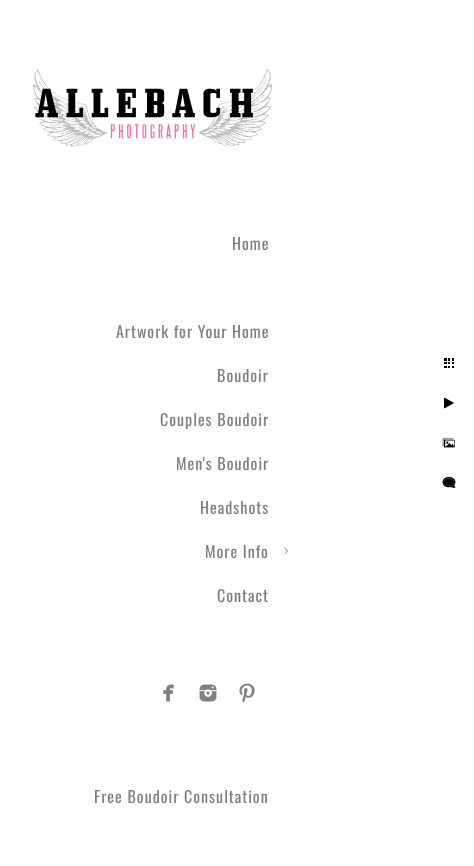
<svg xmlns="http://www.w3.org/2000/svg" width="474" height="866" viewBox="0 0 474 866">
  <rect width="100%" height="100%" fill="#ffffff"/>
  <image x="33" y="69" width="239" height="78" href="img1.png"/>
  <text x="232" y="250" font-family="Oswald" font-size="16" letter-spacing="1" fill="#808080">Home</text>
  <text x="116" y="338" font-family="Oswald" font-size="16" letter-spacing="1" fill="#808080">Artwork for Your Home</text>
  <text x="217" y="382" font-family="Oswald" font-size="16" letter-spacing="1" fill="#808080">Boudoir</text>
  <text x="160" y="426" font-family="Oswald" font-size="16" letter-spacing="1" fill="#808080">Couples Boudoir</text>
  <text x="176" y="470" font-family="Oswald" font-size="16" letter-spacing="1" fill="#808080">Men's Boudoir</text>
  <text x="200" y="514" font-family="Oswald" font-size="16" letter-spacing="1" fill="#808080">Headshots</text>
  <text x="205" y="558" font-family="Oswald" font-size="16" letter-spacing="1" fill="#808080">More Info</text>
  <image x="284" y="547" width="4" height="8" href="img2.png"/>
  <text x="217" y="602" font-family="Oswald" font-size="16" letter-spacing="1" fill="#808080">Contact</text>
  <image x="163" y="684" width="11" height="18" href="img3.png"/>
  <image x="199" y="684" width="18" height="18" href="img4.png"/>
  <image x="239" y="683" width="16" height="20" href="img5.png"/>
  <text x="94" y="803" font-family="Oswald" font-size="16" letter-spacing="1" fill="#808080">Free Boudoir Consultation</text>
  <image x="444" y="358" width="10" height="10" href="img6.png"/>
  <image x="444" y="397" width="10" height="12" href="img7.png"/>
  <image x="442" y="438" width="13" height="10" href="img8.png"/>
  <image x="442" y="476" width="14" height="13" href="img9.png"/>
</svg>
